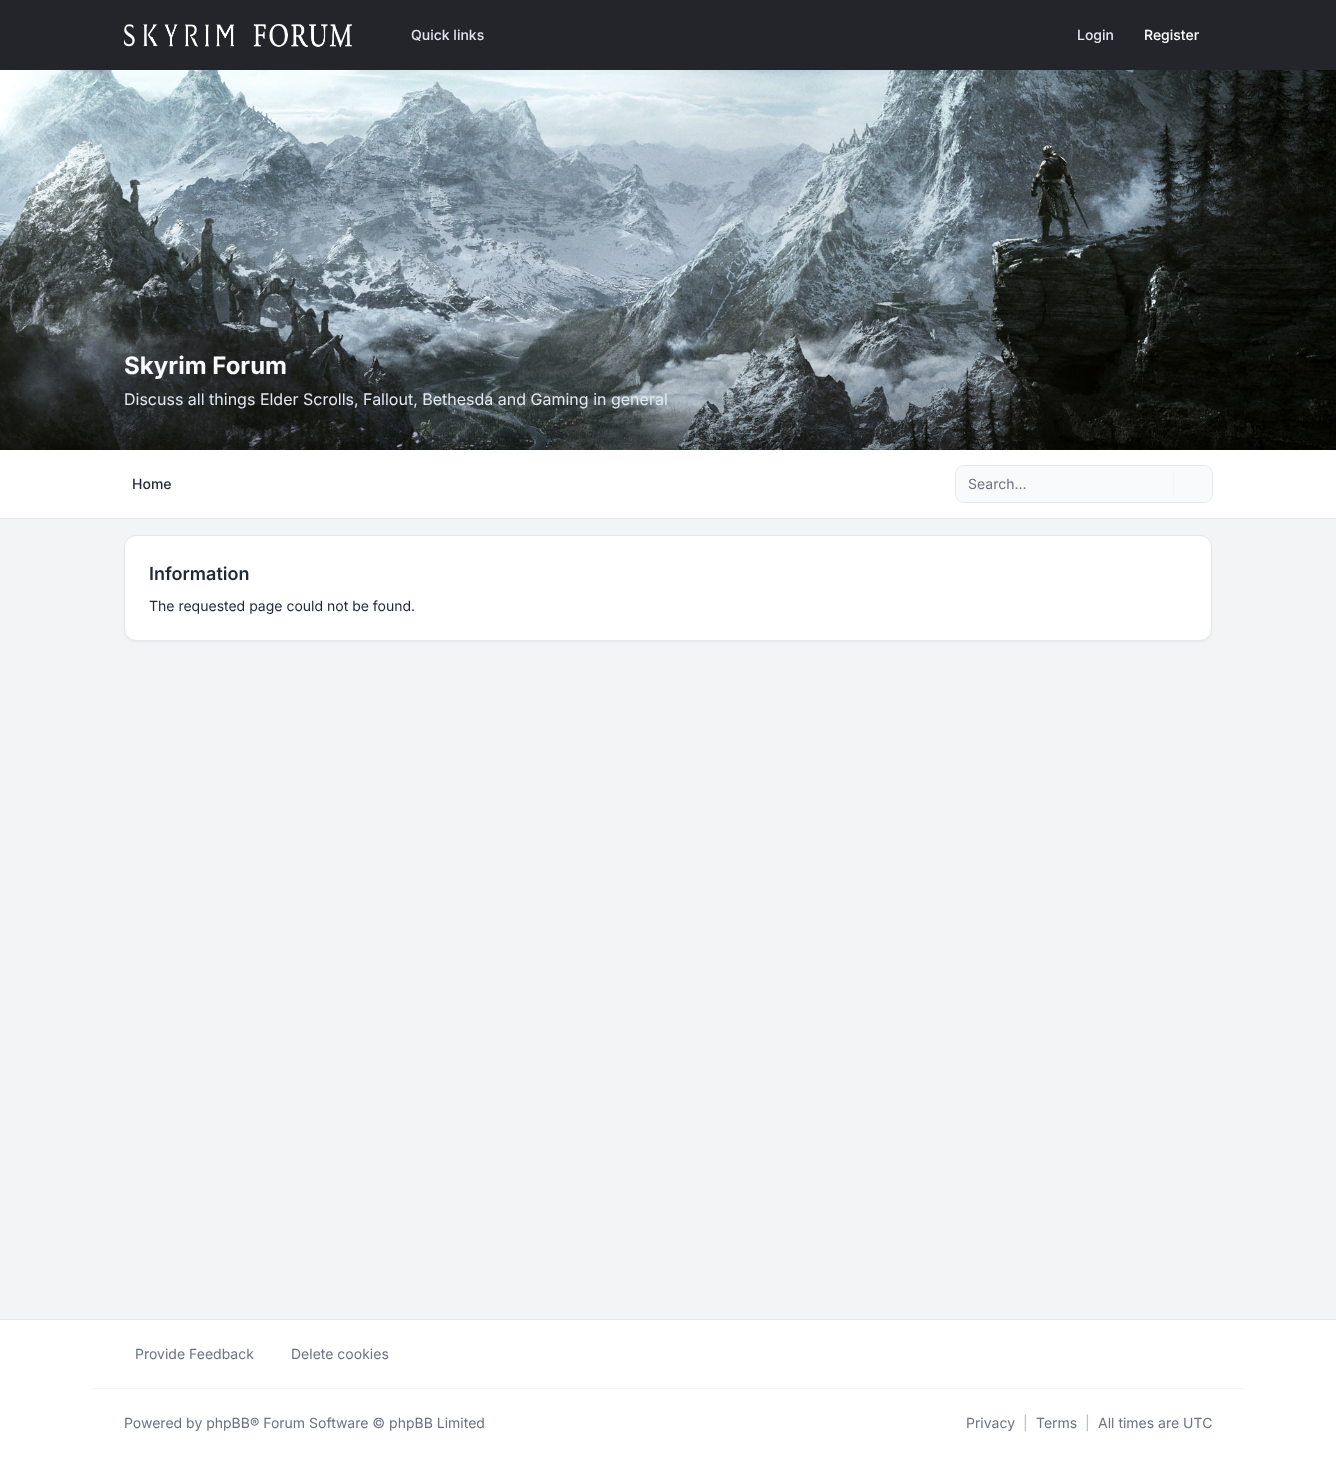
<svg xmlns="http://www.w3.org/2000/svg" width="1336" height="1457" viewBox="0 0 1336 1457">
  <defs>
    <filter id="blur1" x="-50%" y="-200%" width="200%" height="500%"><feGaussianBlur stdDeviation="1"/></filter>
  </defs>
  <rect width="100%" height="100%" fill="#f3f4f6"/>
  <rect x="0" y="0" width="1336" height="70" fill="#23252b"/>
  <image x="124" y="24" width="228" height="24" href="img1.png"/>
  <text x="411" y="40" font-family="Inter" font-size="14" font-weight="500" fill="#e2e8f0">Quick links</text>
  <text x="1077" y="40" font-family="Inter" font-size="14" font-weight="500" fill="#e2e8f0">Login</text>
  <text x="1144" y="40" font-family="Inter" font-size="14" font-weight="500" fill="#ffffff">Register</text>
  <image x="0" y="70" width="1336" height="380" href="img2.png"/>
  <text x="124" y="374" font-family="Inter" font-size="24" font-weight="bold" fill="#f8fafc">Skyrim Forum</text>
  <text x="124" y="405" font-family="Inter" font-size="16" fill="#e2e8f0">Discuss all things Elder Scrolls, Fallout, Bethesda and Gaming in general</text>
  <rect x="0" y="450" width="1336" height="68" fill="#ffffff"/>
  <rect x="0" y="518" width="1336" height="1" fill="#e5e7eb"/>
  <text x="132" y="489" font-family="Inter" font-size="14" font-weight="500" fill="#1f2937">Home</text>
  <rect x="955.5" y="465.5" width="257" height="37" rx="8.5" fill="none" stroke="#e5e7eb"/>
  <rect x="956" y="466" width="256" height="36" rx="8" fill="#f9fafb"/>
  <text x="968" y="489" font-family="Inter" font-size="14" fill="#6b7280">Search…</text>
  <rect x="1173" y="472" width="1" height="24" fill="#f3f4f6"/>
  <rect x="124" y="536" width="1088" height="106" rx="12" fill="#000000" fill-opacity="0.05" filter="url(#blur1)"/>
  <rect x="124.5" y="535.5" width="1087" height="105" rx="11.5" fill="#ffffff" stroke="#e5e7eb"/>
  <text x="149" y="580" font-family="Inter" font-size="18" font-weight="600" fill="#1f2937">Information</text>
  <text x="149" y="611" font-family="Inter" font-size="14" fill="#1f2937">The requested page could not be found.</text>
  <rect x="0" y="1320" width="1336" height="137" fill="#ffffff"/>
  <rect x="0" y="1319" width="1336" height="1" fill="#e5e7eb"/>
  <text x="135" y="1359" font-family="Inter" font-size="14" fill="#6b7280">Provide Feedback</text>
  <text x="291" y="1359" font-family="Inter" font-size="14" fill="#6b7280">Delete cookies</text>
  <rect x="92" y="1388" width="1152" height="1" fill="#f3f4f6"/>
  <text x="124" y="1428" font-family="Inter" font-size="14" fill="#6b7280">Powered by phpBB® Forum Software © phpBB Limited</text>
  <text x="966" y="1428" font-family="Inter" font-size="14" fill="#6b7280">Privacy</text>
  <text x="1023" y="1428" font-family="Inter" font-size="14" fill="#b5b9c0">|</text>
  <text x="1036" y="1428" font-family="Inter" font-size="14" fill="#6b7280">Terms</text>
  <text x="1085" y="1428" font-family="Inter" font-size="14" fill="#b5b9c0">|</text>
  <text x="1098" y="1428" font-family="Inter" font-size="14" fill="#6b7280">All times are UTC</text>
</svg>
